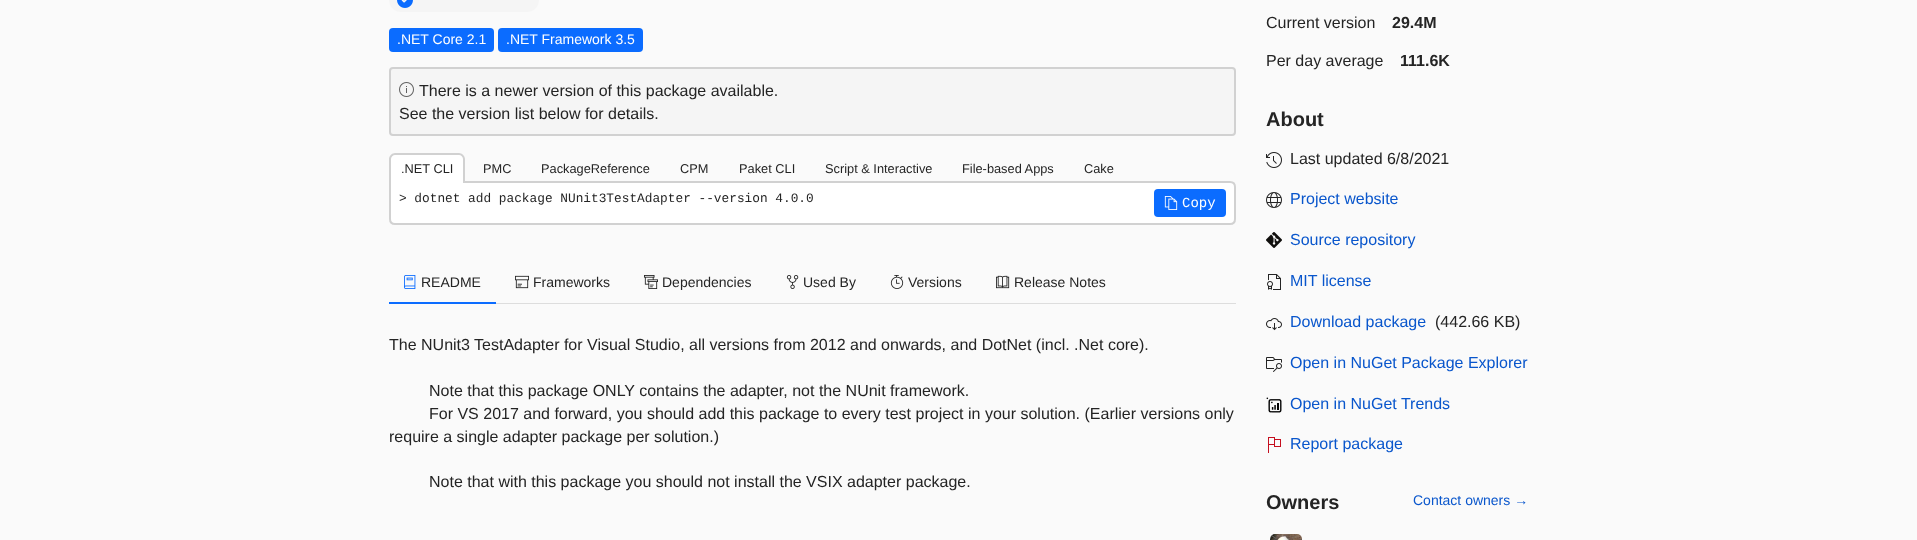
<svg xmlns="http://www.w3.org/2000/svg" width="1917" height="540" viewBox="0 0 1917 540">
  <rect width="100%" height="100%" fill="#fafafa"/>
  <rect x="389" y="-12" width="150" height="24" rx="12" fill="#f5f5f5"/>
  <image x="397" y="0" width="16" height="8" href="img1.png"/>
  <rect x="389" y="28" width="105" height="24" rx="4" fill="#0b6cff"/>
  <text x="397" y="44" font-family="Liberation Sans" font-size="14" fill="#ffffff">.NET Core 2.1</text>
  <rect x="498" y="28" width="145" height="24" rx="4" fill="#0b6cff"/>
  <text x="506" y="44" font-family="Liberation Sans" font-size="14" fill="#ffffff">.NET Framework 3.5</text>
  <rect x="390" y="68" width="845" height="67" rx="3" fill="#f5f5f5" stroke="#d1d1d1" stroke-width="2"/>
  <image x="399" y="82" width="15" height="15" href="img2.png"/>
  <text x="419" y="96" font-family="Liberation Sans" font-size="16" fill="#242424">There is a newer version of this package available.</text>
  <text x="399" y="119" font-family="Liberation Sans" font-size="16" fill="#242424">See the version list below for details.</text>
  <path d="M390 182H1230C1233 182 1235 184 1235 187V219C1235 222 1233 224 1230 224H395C392 224 390 222 390 219Z" fill="#ffffff" stroke="#d1d1d1" stroke-width="2"/>
  <path d="M395 153H459C462.5 153 465 155.5 465 159V183H389V159C389 155.5 391.5 153 395 153Z" fill="#ffffff"/>
  <path d="M395 153H459C462 153 465 156 465 159V183H389V159C389 156 392 153 395 153ZM395 155H459C461 155 463 157 463 159V183H391V159C391 157 393 155 395 155Z" fill="#d1d1d1" fill-rule="evenodd"/>
  <text x="401" y="173" font-family="Liberation Sans" font-size="12.8" fill="#242424">.NET CLI</text>
  <text x="483" y="173" font-family="Liberation Sans" font-size="12.8" fill="#242424">PMC</text>
  <text x="541" y="173" font-family="Liberation Sans" font-size="12.8" fill="#242424">PackageReference</text>
  <text x="680" y="173" font-family="Liberation Sans" font-size="12.8" fill="#242424">CPM</text>
  <text x="739" y="173" font-family="Liberation Sans" font-size="12.8" fill="#242424">Paket CLI</text>
  <text x="825" y="173" font-family="Liberation Sans" font-size="12.8" fill="#242424">Script &amp; Interactive</text>
  <text x="962" y="173" font-family="Liberation Sans" font-size="12.8" fill="#242424">File-based Apps</text>
  <text x="1084" y="173" font-family="Liberation Sans" font-size="12.8" fill="#242424">Cake</text>
  <text x="399" y="202" font-family="Liberation Mono" font-size="12.8" fill="#242424">&gt; dotnet add package NUnit3TestAdapter --version 4.0.0</text>
  <rect x="1154" y="189" width="72" height="28" rx="4" fill="#0b6cff"/>
  <image x="1164" y="196" width="14" height="14" href="img3.png"/>
  <text x="1182" y="207" font-family="Liberation Mono" font-size="14" fill="#ffffff">Copy</text>
  <rect x="496" y="303" width="740" height="1" fill="#dddddd"/>
  <rect x="389" y="302" width="107" height="2" fill="#0b6cff"/>
  <image x="404" y="275" width="12" height="14" href="img4.png"/>
  <text x="421" y="287" font-family="Liberation Sans" font-size="14" fill="#242424">README</text>
  <image x="515" y="275" width="14" height="14" href="img5.png"/>
  <text x="533" y="287" font-family="Liberation Sans" font-size="14" fill="#242424">Frameworks</text>
  <image x="644" y="275" width="14" height="14" href="img6.png"/>
  <text x="662" y="287" font-family="Liberation Sans" font-size="14" fill="#242424">Dependencies</text>
  <image x="786" y="275" width="13" height="14" href="img7.png"/>
  <text x="803" y="287" font-family="Liberation Sans" font-size="14" fill="#242424">Used By</text>
  <image x="890" y="275" width="14" height="14" href="img8.png"/>
  <text x="908" y="287" font-family="Liberation Sans" font-size="14" fill="#242424">Versions</text>
  <image x="996" y="275" width="14" height="14" href="img9.png"/>
  <text x="1014" y="287" font-family="Liberation Sans" font-size="14" fill="#242424">Release Notes</text>
  <text x="389" y="350" font-family="Liberation Sans" font-size="16" fill="#242424">The NUnit3 TestAdapter for Visual Studio, all versions from 2012 and onwards, and DotNet (incl. .Net core).</text>
  <text x="429" y="396" font-family="Liberation Sans" font-size="16" fill="#242424">Note that this package ONLY contains the adapter, not the NUnit framework.</text>
  <text x="429" y="419" font-family="Liberation Sans" font-size="16" fill="#242424">For VS 2017 and forward, you should add this package to every test project in your solution. (Earlier versions only</text>
  <text x="389" y="442" font-family="Liberation Sans" font-size="16" fill="#242424">require a single adapter package per solution.)</text>
  <text x="429" y="487" font-family="Liberation Sans" font-size="16" fill="#242424">Note that with this package you should not install the VSIX adapter package.</text>
  <text x="1266" y="28" font-family="Liberation Sans" font-size="16" fill="#242424">Current version</text>
  <text x="1392" y="28" font-family="Liberation Sans" font-size="16" font-weight="bold" fill="#242424">29.4M</text>
  <text x="1266" y="66" font-family="Liberation Sans" font-size="16" fill="#242424">Per day average</text>
  <text x="1400" y="66" font-family="Liberation Sans" font-size="16" font-weight="bold" fill="#242424">111.6K</text>
  <text x="1266" y="126" font-family="Liberation Sans" font-size="20" font-weight="bold" fill="#242424">About</text>
  <image x="1266" y="152" width="16" height="16" href="img10.png"/>
  <text x="1290" y="164" font-family="Liberation Sans" font-size="16" fill="#242424">Last updated 6/8/2021</text>
  <image x="1266" y="192" width="16" height="16" href="img11.png"/>
  <text x="1290" y="204" font-family="Liberation Sans" font-size="16" fill="#0956cc">Project website</text>
  <image x="1266" y="232" width="16" height="16" href="img12.png"/>
  <text x="1290" y="245" font-family="Liberation Sans" font-size="16" fill="#0956cc">Source repository</text>
  <image x="1267" y="274" width="14" height="16" href="img13.png"/>
  <text x="1290" y="286" font-family="Liberation Sans" font-size="16" fill="#0956cc">MIT license</text>
  <image x="1266" y="318" width="16" height="13" href="img14.png"/>
  <text x="1290" y="327" font-family="Liberation Sans" font-size="16" fill="#0956cc">Download package</text>
  <text x="1435" y="327" font-family="Liberation Sans" font-size="16" fill="#242424">(442.66 KB)</text>
  <image x="1266" y="357" width="16" height="15" href="img15.png"/>
  <text x="1290" y="368" font-family="Liberation Sans" font-size="16" fill="#0956cc">Open in NuGet Package Explorer</text>
  <image x="1266" y="397" width="16" height="16" href="img16.png"/>
  <text x="1290" y="409" font-family="Liberation Sans" font-size="16" fill="#0956cc">Open in NuGet Trends</text>
  <image x="1268" y="437" width="13" height="16" href="img17.png"/>
  <text x="1290" y="449" font-family="Liberation Sans" font-size="16" fill="#0956cc">Report package</text>
  <text x="1266" y="509" font-family="Liberation Sans" font-size="20" font-weight="bold" fill="#242424">Owners</text>
  <text x="1413" y="505" font-family="Liberation Sans" font-size="14" fill="#0956cc">Contact owners →</text>
  <image x="1270" y="534" width="32" height="6" href="img18.png"/>
</svg>
